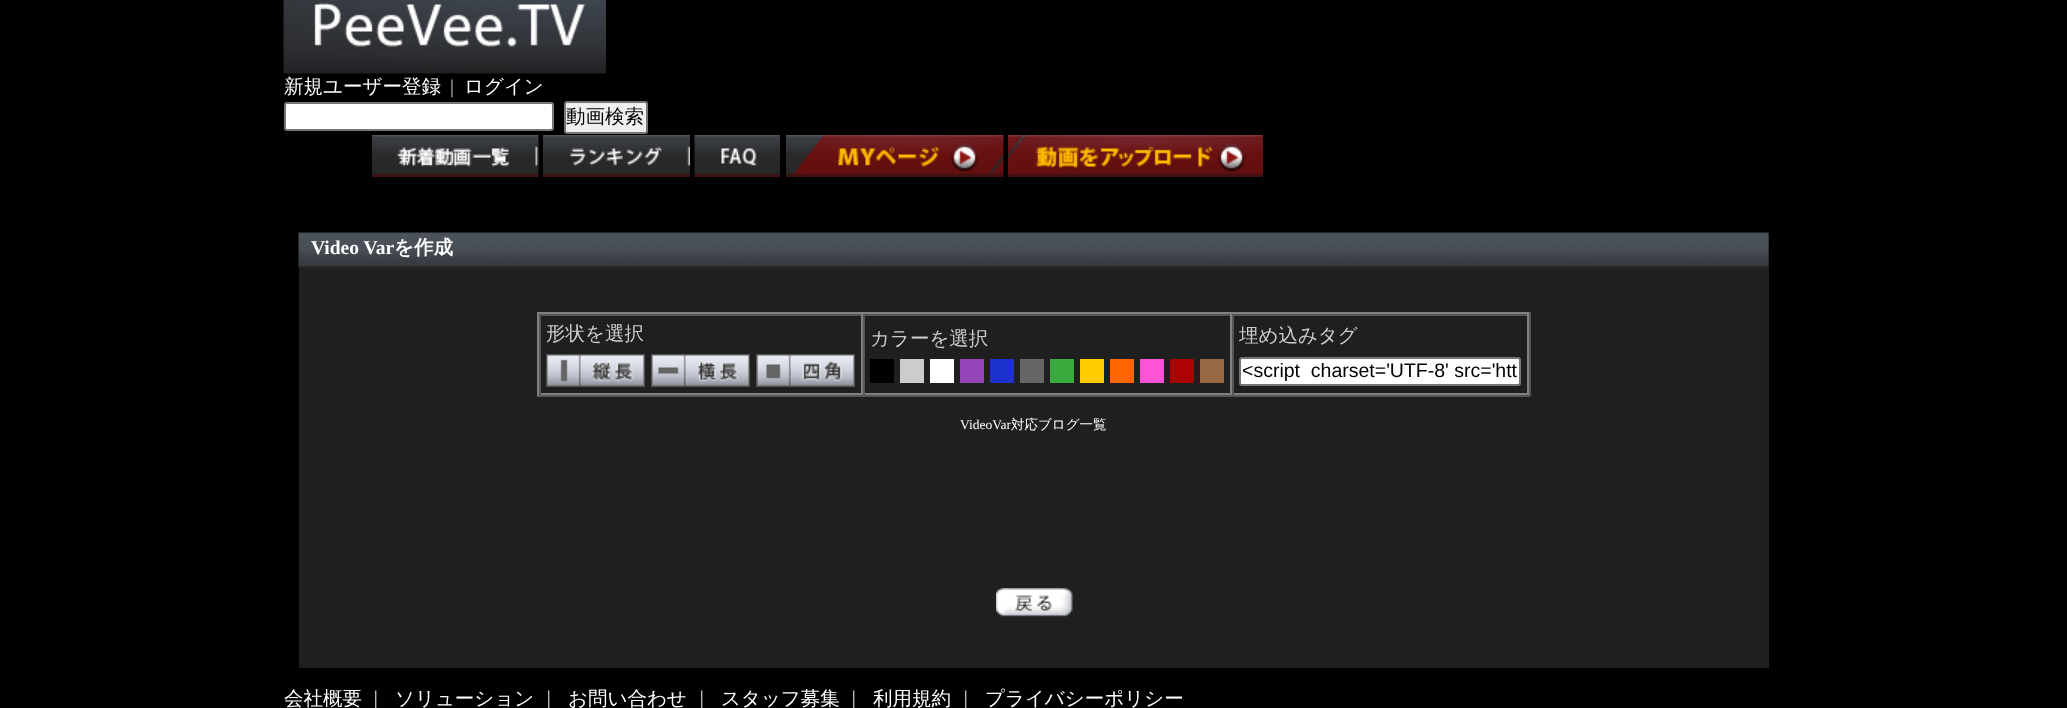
<svg xmlns="http://www.w3.org/2000/svg" width="2067" height="708" viewBox="0 0 2067 708">
  <rect width="100%" height="100%" fill="#000000"/>
  <image x="283" y="0" width="323" height="74" href="img1.png"/>
  <text x="284" y="93" font-family="WenQuanYi Zen Hei" font-size="19.5" font-weight="500" fill="#ffffff">新規ユーザー登録</text>
  <text x="450" y="93" font-family="Liberation Serif" font-size="19.5" fill="#cccccc">|</text>
  <text x="464" y="93" font-family="WenQuanYi Zen Hei" font-size="19.5" font-weight="500" fill="#ffffff">ログイン</text>
  <rect x="285" y="103" width="268" height="27" rx="2" fill="#ffffff" stroke="#767676" stroke-width="2"/>
  <rect x="565" y="102" width="82" height="31" rx="2" fill="#efefef" stroke="#767676" stroke-width="2"/>
  <text x="566" y="123" font-family="WenQuanYi Zen Hei" font-size="19.5" font-weight="500" fill="#000000">動画検索</text>
  <image x="372" y="135" width="167" height="42" href="img2.png"/>
  <image x="543" y="135" width="147" height="42" href="img3.png"/>
  <image x="694" y="135" width="86" height="42" href="img4.png"/>
  <image x="786" y="135" width="218" height="42" href="img5.png"/>
  <image x="1008" y="135" width="255" height="42" href="img6.png"/>
  <rect x="299" y="233" width="1470" height="435" fill="#1f1f1f"/>
  <image x="298" y="232" width="1471" height="35" href="img7.png"/>
  <rect x="299" y="266" width="1470" height="2" fill="#262626"/>
  <text x="311" y="254" font-family="Liberation Serif" font-size="19.5" font-weight="bold" fill="#ffffff">Video Var</text>
  <text x="394" y="254" font-family="WenQuanYi Zen Hei" font-size="19.5" font-weight="bold" fill="#ffffff">を作成</text>
  <rect x="537" y="312" width="993" height="2" fill="#808080"/>
  <rect x="1529" y="312" width="2" height="84" fill="#555555"/>
  <rect x="537" y="395" width="993" height="2" fill="#555555"/>
  <rect x="537" y="312" width="2" height="84" fill="#808080"/>
  <rect x="539" y="314" width="990" height="2" fill="#555555"/>
  <rect x="861" y="314" width="2" height="81" fill="#808080"/>
  <rect x="539" y="393" width="324" height="2" fill="#808080"/>
  <rect x="539" y="314" width="2" height="81" fill="#555555"/>
  <text x="546" y="340" font-family="WenQuanYi Zen Hei" font-size="19.5" font-weight="500" fill="#cccccc">形状を選択</text>
  <image x="546" y="354" width="99" height="33" href="img8.png"/>
  <image x="651" y="354" width="99" height="33" href="img9.png"/>
  <image x="756" y="354" width="99" height="33" href="img10.png"/>
  <rect x="1230" y="314" width="2" height="81" fill="#808080"/>
  <rect x="863" y="393" width="369" height="2" fill="#808080"/>
  <rect x="863" y="314" width="2" height="81" fill="#555555"/>
  <text x="870" y="345" font-family="WenQuanYi Zen Hei" font-size="19.5" font-weight="500" fill="#cccccc">カラーを選択</text>
  <rect x="870" y="359" width="24" height="24" fill="#000000"/>
  <rect x="900" y="359" width="24" height="24" fill="#cccccc"/>
  <rect x="930" y="359" width="24" height="24" fill="#ffffff"/>
  <rect x="960" y="359" width="24" height="24" fill="#9544b7"/>
  <rect x="990" y="359" width="24" height="24" fill="#1d32cd"/>
  <rect x="1020" y="359" width="24" height="24" fill="#666666"/>
  <rect x="1050" y="359" width="24" height="24" fill="#38a93c"/>
  <rect x="1080" y="359" width="24" height="24" fill="#ffcc00"/>
  <rect x="1110" y="359" width="24" height="24" fill="#ff6600"/>
  <rect x="1140" y="359" width="24" height="24" fill="#ff54d5"/>
  <rect x="1170" y="359" width="24" height="24" fill="#ac0202"/>
  <rect x="1200" y="359" width="24" height="24" fill="#966843"/>
  <rect x="1527" y="314" width="2" height="81" fill="#808080"/>
  <rect x="1232" y="393" width="297" height="2" fill="#808080"/>
  <rect x="1232" y="314" width="2" height="81" fill="#555555"/>
  <text x="1239" y="342" font-family="WenQuanYi Zen Hei" font-size="19.5" font-weight="500" fill="#cccccc">埋め込みタグ</text>
  <rect x="1240" y="358" width="280" height="27" rx="2" fill="#ffffff" stroke="#767676" stroke-width="2"/>
  <text x="1242" y="377" font-family="Liberation Sans" font-size="19.5" fill="#000000" xml:space="preserve">&lt;script  charset='UTF-8' src='htt</text>
  <text x="960" y="429" font-family="Liberation Serif" font-size="13.5" fill="#ffffff">VideoVar</text>
  <text x="1011" y="429" font-family="WenQuanYi Zen Hei" font-size="13.5" font-weight="500" fill="#ffffff">対応ブログ一覧</text>
  <image x="996" y="588" width="77" height="29" href="img11.png"/>
  <text x="284" y="705" font-family="WenQuanYi Zen Hei" font-size="19.5" font-weight="500" fill="#ffffff">会社概要</text>
  <text x="366" y="705" font-family="WenQuanYi Zen Hei" font-size="19.5" font-weight="500" fill="#cccccc">｜</text>
  <text x="395" y="705" font-family="WenQuanYi Zen Hei" font-size="19.5" font-weight="500" fill="#ffffff">ソリューション</text>
  <text x="539" y="705" font-family="WenQuanYi Zen Hei" font-size="19.5" font-weight="500" fill="#cccccc">｜</text>
  <text x="568" y="705" font-family="WenQuanYi Zen Hei" font-size="19.5" font-weight="500" fill="#ffffff">お問い合わせ</text>
  <text x="692" y="705" font-family="WenQuanYi Zen Hei" font-size="19.5" font-weight="500" fill="#cccccc">｜</text>
  <text x="721" y="705" font-family="WenQuanYi Zen Hei" font-size="19.5" font-weight="500" fill="#ffffff">スタッフ募集</text>
  <text x="844" y="705" font-family="WenQuanYi Zen Hei" font-size="19.5" font-weight="500" fill="#cccccc">｜</text>
  <text x="873" y="705" font-family="WenQuanYi Zen Hei" font-size="19.5" font-weight="500" fill="#ffffff">利用規約</text>
  <text x="956" y="705" font-family="WenQuanYi Zen Hei" font-size="19.5" font-weight="500" fill="#cccccc">｜</text>
  <text x="985" y="705" font-family="WenQuanYi Zen Hei" font-size="19.5" font-weight="500" fill="#ffffff">プライバシーポリシー</text>
</svg>
